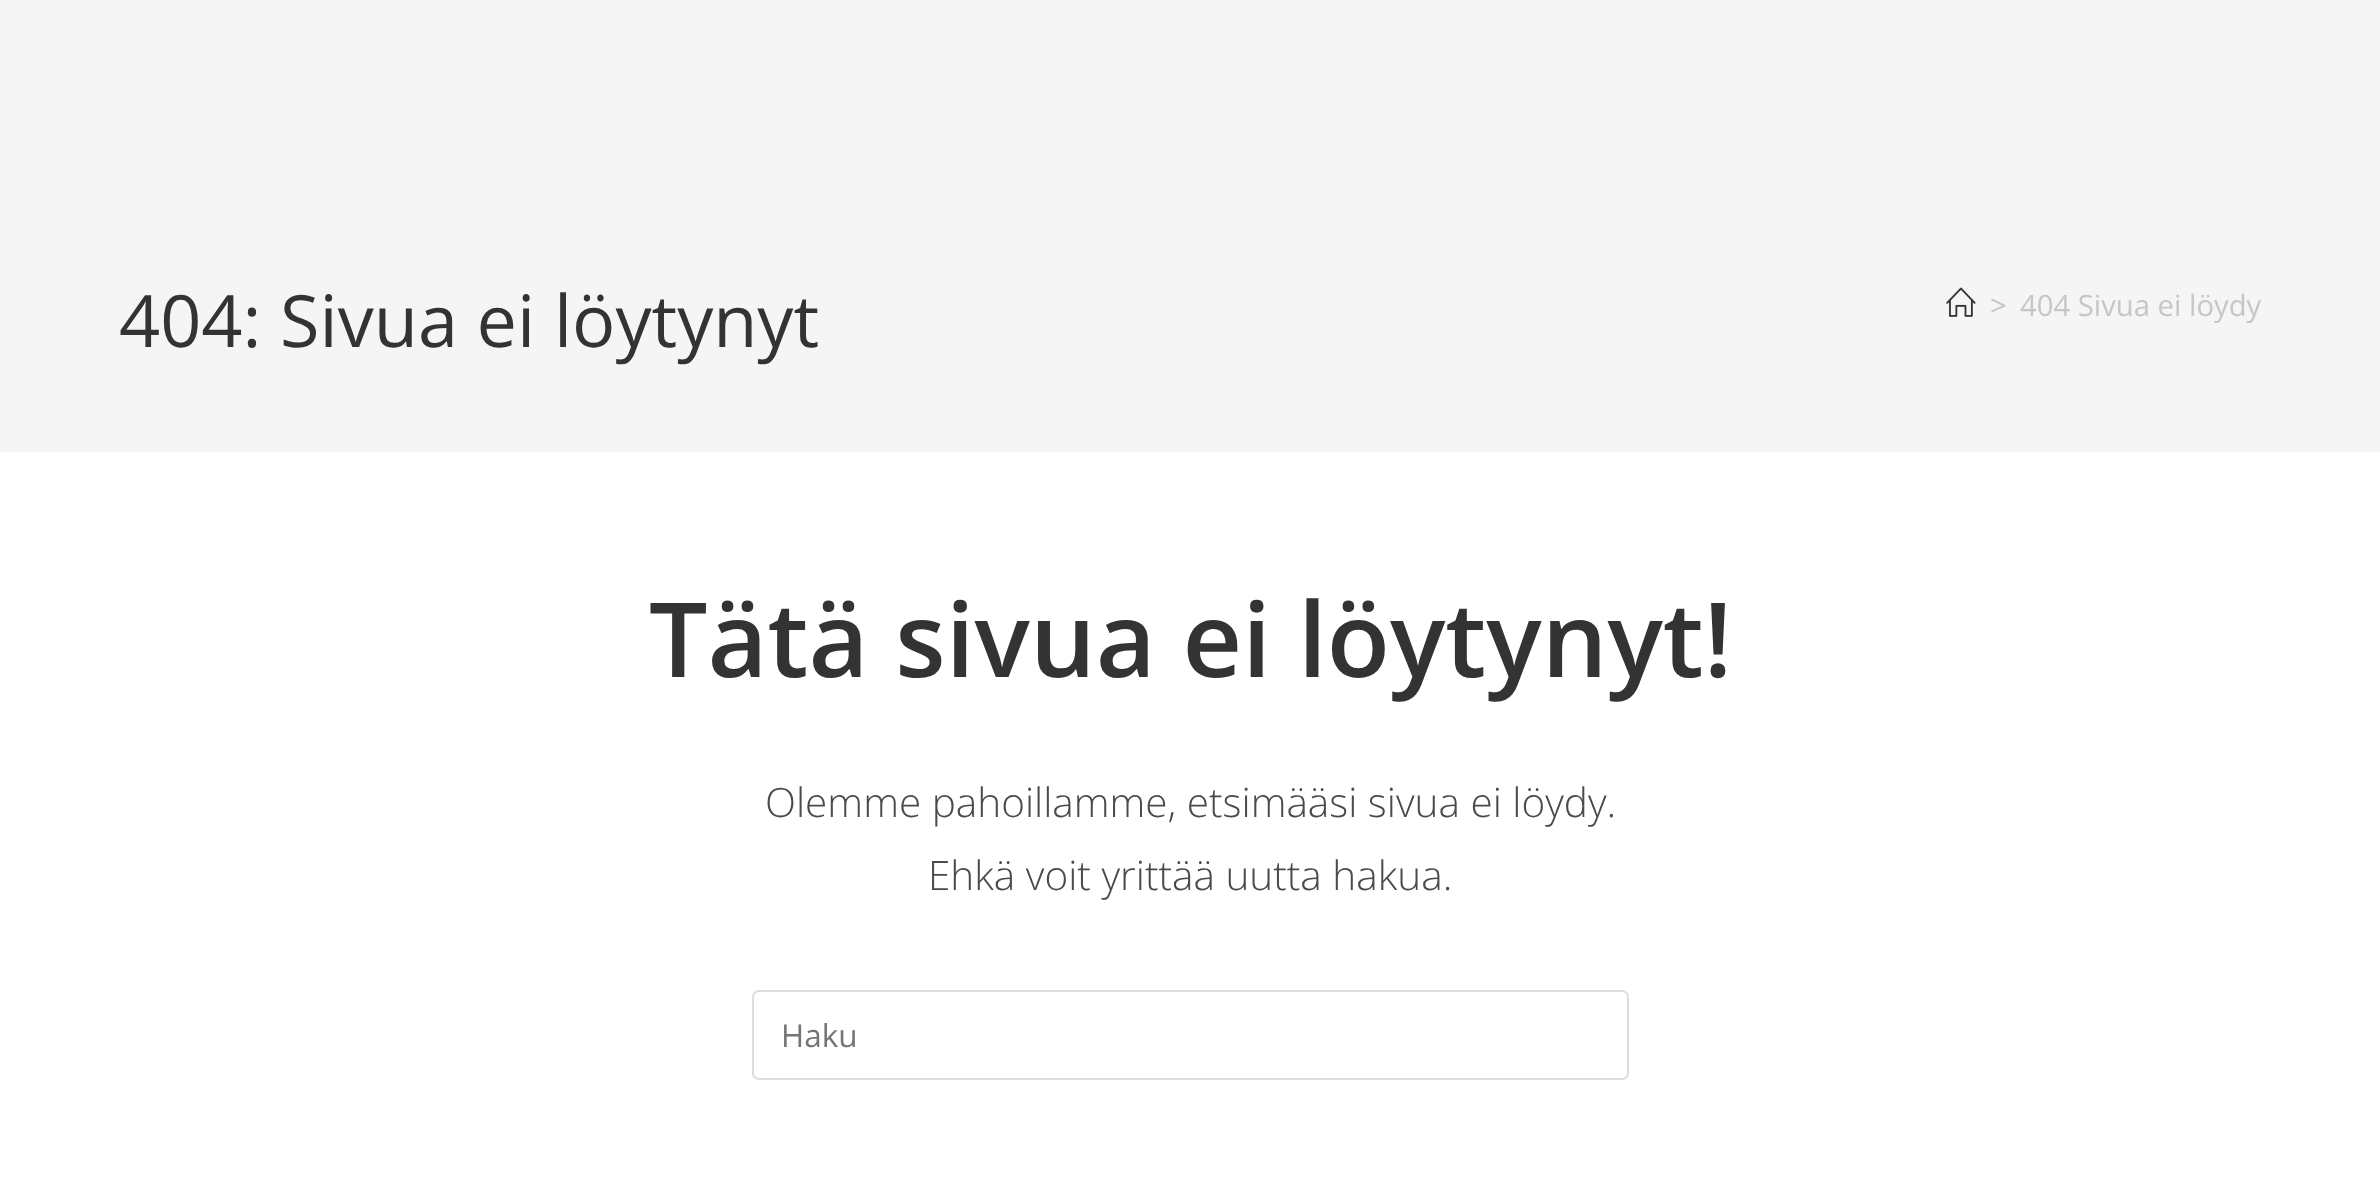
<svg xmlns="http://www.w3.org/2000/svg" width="2380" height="1180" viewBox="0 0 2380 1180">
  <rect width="100%" height="100%" fill="#ffffff"/>
  <rect x="0" y="0" width="2380" height="452" fill="#f5f5f5"/>
  <text x="119" y="347" font-family="Open Sans" font-size="72" fill="#333333">404: Sivua ei löytynyt</text>
  <image x="1946" y="287" width="30" height="30" href="img1.png"/>
  <text x="1990" y="316" font-family="Open Sans" font-size="29.25" fill="#c6c6c6">&gt;</text>
  <text x="2020" y="316" font-family="Open Sans" font-size="29.25" fill="#c6c6c6">404 Sivua ei löydy</text>
  <text x="649" y="677" font-family="Open Sans" font-size="103.5" font-weight="600" fill="#333333">Tätä sivua ei löytynyt!</text>
  <text x="765" y="817" font-family="Open Sans" font-size="40.5" font-weight="300" fill="#4a4a4a">Olemme pahoillamme, etsimääsi sivua ei löydy.</text>
  <text x="928" y="890" font-family="Open Sans" font-size="40.5" font-weight="300" fill="#4a4a4a">Ehkä voit yrittää uutta hakua.</text>
  <rect x="753" y="991" width="875" height="88" rx="6" fill="none" stroke="#dddddd" stroke-width="2"/>
  <text x="781" y="1047" font-family="Open Sans" font-size="31.5" fill="#757575">Haku</text>
</svg>
